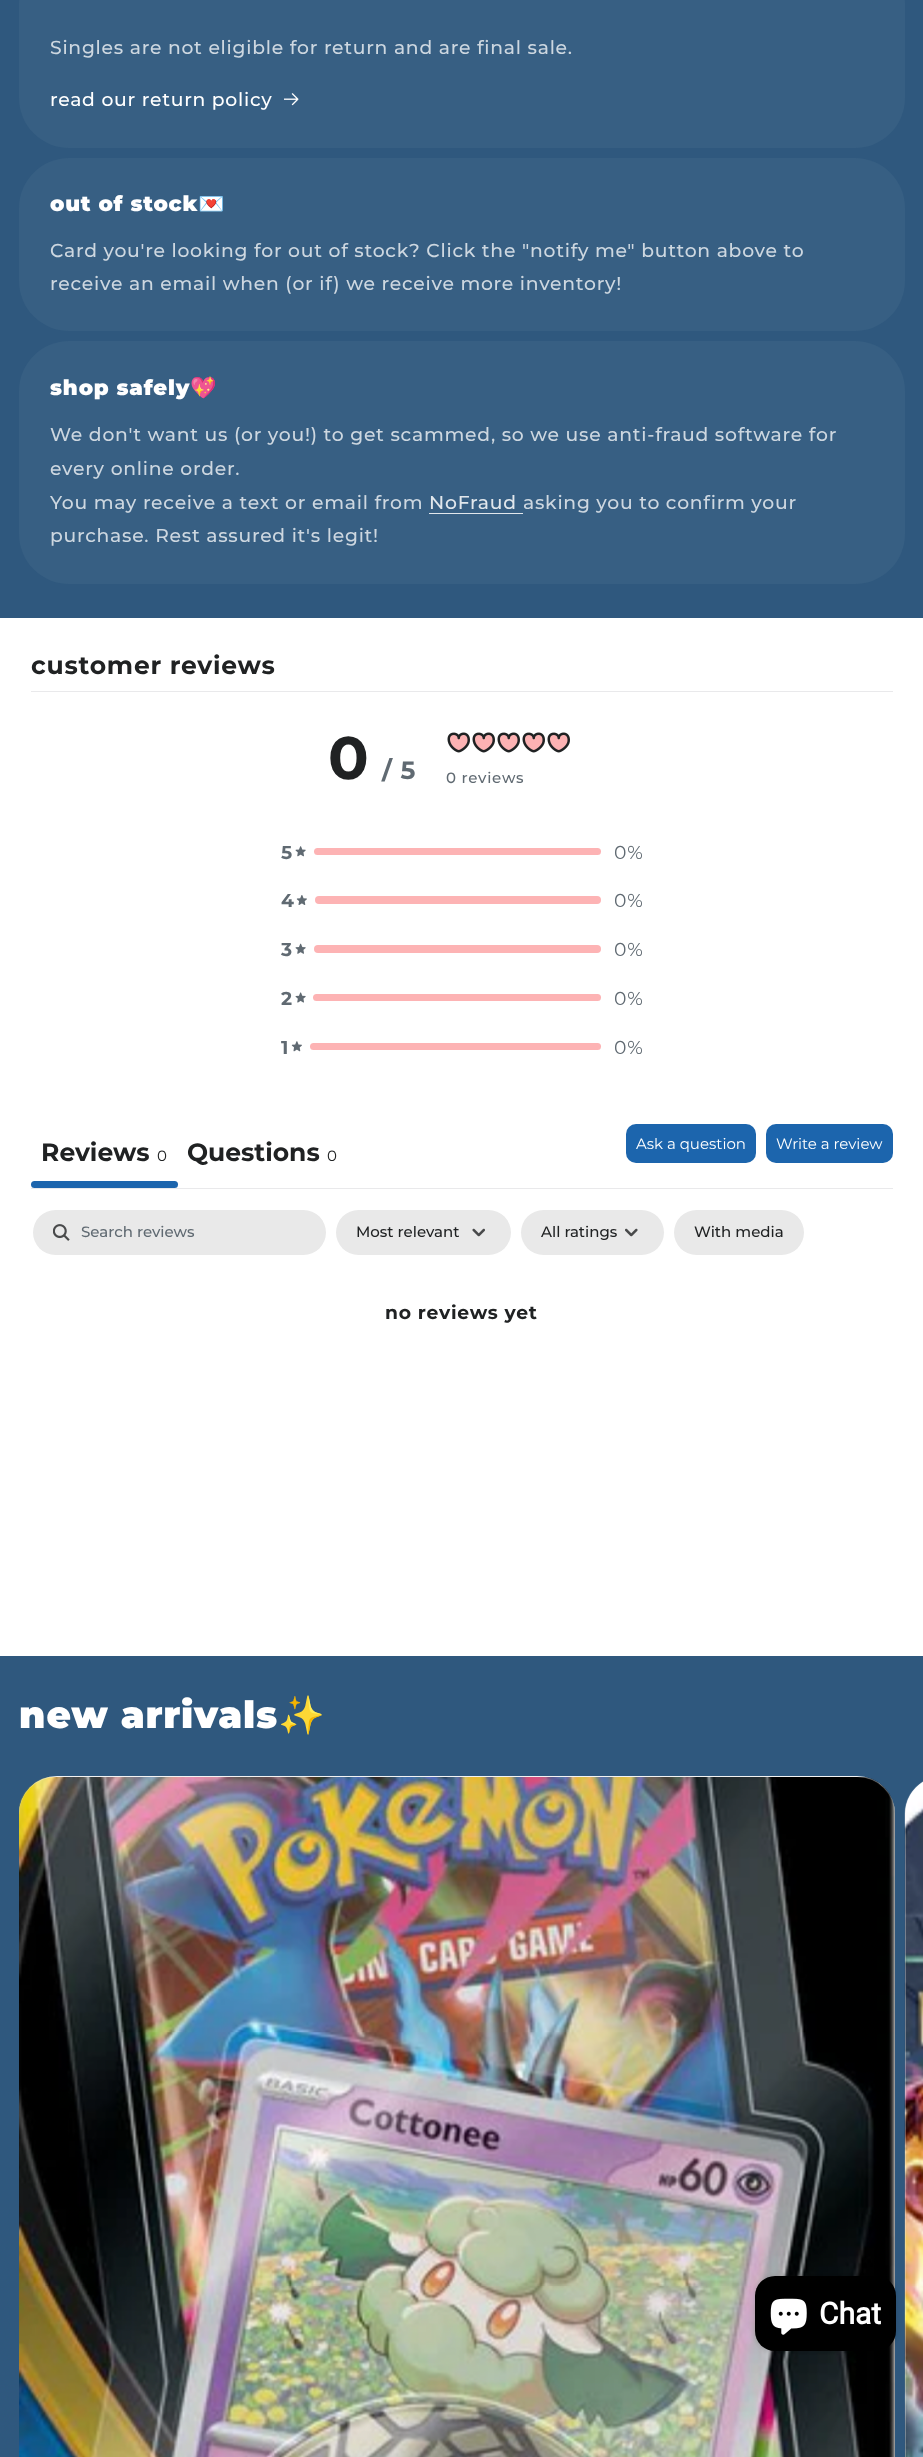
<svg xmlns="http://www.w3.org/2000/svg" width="923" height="2457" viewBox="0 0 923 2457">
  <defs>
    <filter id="blur1" x="-50%" y="-200%" width="200%" height="500%"><feGaussianBlur stdDeviation="3"/></filter>
  </defs>
  <rect width="100%" height="100%" fill="#ffffff"/>
  <rect x="0" y="0" width="923" height="618" fill="#2f587e"/>
  <rect x="19" y="-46" width="886" height="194" rx="50" fill="#375f83"/>
  <text x="50" y="54" font-family="Montserrat" font-size="18.75" font-weight="500" letter-spacing="0.75" fill="#cdd7e0">Singles are not eligible for return and are final sale.</text>
  <text x="50" y="106" font-family="Montserrat" font-size="18.75" font-weight="500" letter-spacing="0.75" fill="#ffffff">read our return policy</text>
  <image x="284" y="93" width="15" height="13" href="img1.png"/>
  <rect x="19" y="158" width="886" height="173" rx="50" fill="#375f83"/>
  <text x="50" y="211" font-family="Montserrat" font-size="21.25" font-weight="900" letter-spacing="0.75" fill="#ffffff">out of stock</text>
  <text x="198" y="211" font-family="Noto Color Emoji" font-size="21.25" font-weight="bold" letter-spacing="0.75" fill="#ffffff">💌</text>
  <text x="50" y="257" font-family="Montserrat" font-size="18.75" font-weight="500" letter-spacing="0.75" fill="#cdd7e0">Card you're looking for out of stock? Click the "notify me" button above to</text>
  <text x="50" y="290" font-family="Montserrat" font-size="18.75" font-weight="500" letter-spacing="0.75" fill="#cdd7e0">receive an email when (or if) we receive more inventory!</text>
  <rect x="19" y="341" width="886" height="243" rx="50" fill="#375f83"/>
  <text x="50" y="395" font-family="Montserrat" font-size="21.25" font-weight="900" letter-spacing="0.75" fill="#ffffff">shop safely</text>
  <text x="190" y="395" font-family="Noto Color Emoji" font-size="21.25" font-weight="bold" letter-spacing="0.75" fill="#ffffff">💖</text>
  <text x="50" y="441" font-family="Montserrat" font-size="18.75" font-weight="500" letter-spacing="0.75" fill="#cdd7e0">We don't want us (or you!) to get scammed, so we use anti-fraud software for</text>
  <text x="50" y="475" font-family="Montserrat" font-size="18.75" font-weight="500" letter-spacing="0.75" fill="#cdd7e0">every online order.</text>
  <text x="50" y="509" font-family="Montserrat" font-size="18.75" font-weight="500" letter-spacing="0.75" fill="#cdd7e0">You may receive a text or email from</text>
  <text x="429" y="509" font-family="Montserrat" font-size="18.75" font-weight="500" letter-spacing="0.75" fill="#e1e7ec">NoFraud</text>
  <rect x="429" y="513" width="94" height="1" fill="#e1e7ec"/>
  <text x="523" y="509" font-family="Montserrat" font-size="18.75" font-weight="500" letter-spacing="0.75" fill="#cdd7e0">asking you to confirm your</text>
  <text x="50" y="542" font-family="Montserrat" font-size="18.75" font-weight="500" letter-spacing="0.75" fill="#cdd7e0">purchase. Rest assured it's legit!</text>
  <rect x="31" y="691" width="862" height="1" fill="#e9e9eb"/>
  <text x="31" y="674" font-family="Montserrat" font-size="25" font-weight="bold" letter-spacing="0.75" fill="#202223">customer reviews</text>
  <text x="328" y="779" font-family="Montserrat" font-size="60" font-weight="bold" letter-spacing="0.75" fill="#202223">0</text>
  <text x="382" y="779" font-family="Montserrat" font-size="25" font-weight="bold" letter-spacing="0.75" fill="#606a72">/ 5</text>
  <image x="447" y="732" width="23" height="21" href="img2.png"/>
  <image x="472" y="732" width="23" height="21" href="img2.png"/>
  <image x="497" y="732" width="23" height="21" href="img2.png"/>
  <image x="522" y="732" width="23" height="21" href="img2.png"/>
  <image x="547" y="732" width="23" height="21" href="img2.png"/>
  <text x="446" y="783" font-family="Montserrat" font-size="15" font-weight="500" letter-spacing="0.75" fill="#606a72">0 reviews</text>
  <text x="281" y="859" font-family="Montserrat" font-size="18.75" font-weight="bold" letter-spacing="0.75" fill="#606a72">5</text>
  <image x="295" y="846" width="11" height="11" href="img3.png"/>
  <rect x="314" y="848" width="287" height="7" rx="3.5" fill="#fdb3b4"/>
  <text x="614" y="859" font-family="Montserrat" font-size="18.75" letter-spacing="0.75" fill="#606a72">0%</text>
  <text x="281" y="907" font-family="Montserrat" font-size="18.75" font-weight="bold" letter-spacing="0.75" fill="#606a72">4</text>
  <image x="296" y="895" width="11" height="10" href="img4.png"/>
  <rect x="315" y="896" width="286" height="8" rx="4" fill="#fdb3b4"/>
  <text x="614" y="907" font-family="Montserrat" font-size="18.75" letter-spacing="0.75" fill="#606a72">0%</text>
  <text x="281" y="956" font-family="Montserrat" font-size="18.75" font-weight="bold" letter-spacing="0.75" fill="#606a72">3</text>
  <image x="295" y="943" width="11" height="11" href="img5.png"/>
  <rect x="314" y="945" width="287" height="8" rx="4" fill="#fdb3b4"/>
  <text x="614" y="956" font-family="Montserrat" font-size="18.75" letter-spacing="0.75" fill="#606a72">0%</text>
  <text x="281" y="1005" font-family="Montserrat" font-size="18.75" font-weight="bold" letter-spacing="0.75" fill="#606a72">2</text>
  <image x="295" y="992" width="11" height="11" href="img6.png"/>
  <rect x="313" y="994" width="288" height="7" rx="3.5" fill="#fdb3b4"/>
  <text x="614" y="1005" font-family="Montserrat" font-size="18.75" letter-spacing="0.75" fill="#606a72">0%</text>
  <text x="281" y="1054" font-family="Montserrat" font-size="18.75" font-weight="bold" letter-spacing="0.75" fill="#606a72">1</text>
  <image x="291" y="1041" width="11" height="11" href="img7.png"/>
  <rect x="310" y="1043" width="291" height="7" rx="3.5" fill="#fdb3b4"/>
  <text x="614" y="1054" font-family="Montserrat" font-size="18.75" letter-spacing="0.75" fill="#606a72">0%</text>
  <rect x="31" y="1188" width="862" height="1" fill="#e9e9eb"/>
  <text x="41" y="1161" font-family="Montserrat" font-size="25" font-weight="bold" fill="#202223">Reviews</text>
  <text x="157" y="1161" font-family="Montserrat" font-size="15" fill="#202223">0</text>
  <rect x="31" y="1181" width="147" height="7" rx="3.5" fill="#1c65ad"/>
  <text x="187" y="1161" font-family="Montserrat" font-size="25" font-weight="bold" fill="#202223">Questions</text>
  <text x="327" y="1161" font-family="Montserrat" font-size="15" fill="#202223">0</text>
  <rect x="626" y="1124" width="130" height="39" rx="10" fill="#1c65ad"/>
  <text x="636" y="1149" font-family="Montserrat" font-size="15" fill="#ffffff">Ask a question</text>
  <rect x="766" y="1124" width="127" height="39" rx="10" fill="#1c65ad"/>
  <text x="776" y="1149" font-family="Montserrat" font-size="15" fill="#ffffff">Write a review</text>
  <rect x="33" y="1210" width="293" height="45" rx="22.5" fill="#e9e9e9"/>
  <image x="53" y="1224" width="17" height="17" href="img8.png"/>
  <text x="81" y="1237" font-family="Montserrat" font-size="15" font-weight="500" fill="#606a72">Search reviews</text>
  <rect x="336" y="1210" width="175" height="45" rx="22.5" fill="#e9e9e9"/>
  <text x="356" y="1237" font-family="Montserrat" font-size="15" font-weight="500" fill="#202223">Most relevant</text>
  <image x="472" y="1228" width="13" height="9" href="img9.png"/>
  <rect x="521" y="1210" width="143" height="45" rx="22.5" fill="#e9e9e9"/>
  <text x="541" y="1237" font-family="Montserrat" font-size="15" font-weight="500" fill="#202223">All ratings</text>
  <image x="625" y="1228" width="13" height="9" href="img10.png"/>
  <rect x="674" y="1210" width="130" height="45" rx="22.5" fill="#e9e9e9"/>
  <text x="694" y="1237" font-family="Montserrat" font-size="15" font-weight="500" fill="#202223">With media</text>
  <text x="385" y="1319" font-family="Montserrat" font-size="18.75" font-weight="bold" letter-spacing="0.75" fill="#202223">no reviews yet</text>
  <rect x="0" y="1656" width="923" height="801" fill="#2f587e"/>
  <text x="19" y="1728" font-family="Montserrat" font-size="37.5" font-weight="900" letter-spacing="0.75" fill="#ffffff">new arrivals</text>
  <text x="278" y="1728" font-family="Noto Color Emoji" font-size="37.5" font-weight="bold" letter-spacing="0.75" fill="#ffffff">✨</text>
  <rect x="19" y="1776" width="876" height="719" rx="38" fill="#f3f3f3"/>
  <image x="19" y="1777" width="876" height="680" href="img11.png"/>
  <path d="M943 1776H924V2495H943C922 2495 905 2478 905 2457V1814C905 1793 922 1776 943 1776Z" fill="#f3f3f3"/>
  <image x="904" y="1781" width="19" height="676" href="img12.png"/>
  <rect x="755" y="2276" width="141" height="75" rx="20" fill="#000000" fill-opacity="0.15" filter="url(#blur1)"/>
  <rect x="755" y="2276" width="141" height="75" rx="20" fill="#000000"/>
  <image x="770" y="2298" width="37" height="37" href="img13.png"/>
  <text x="819" y="2324" font-family="Roboto" font-size="30" font-weight="bold" fill="#ffffff">Chat</text>
</svg>
